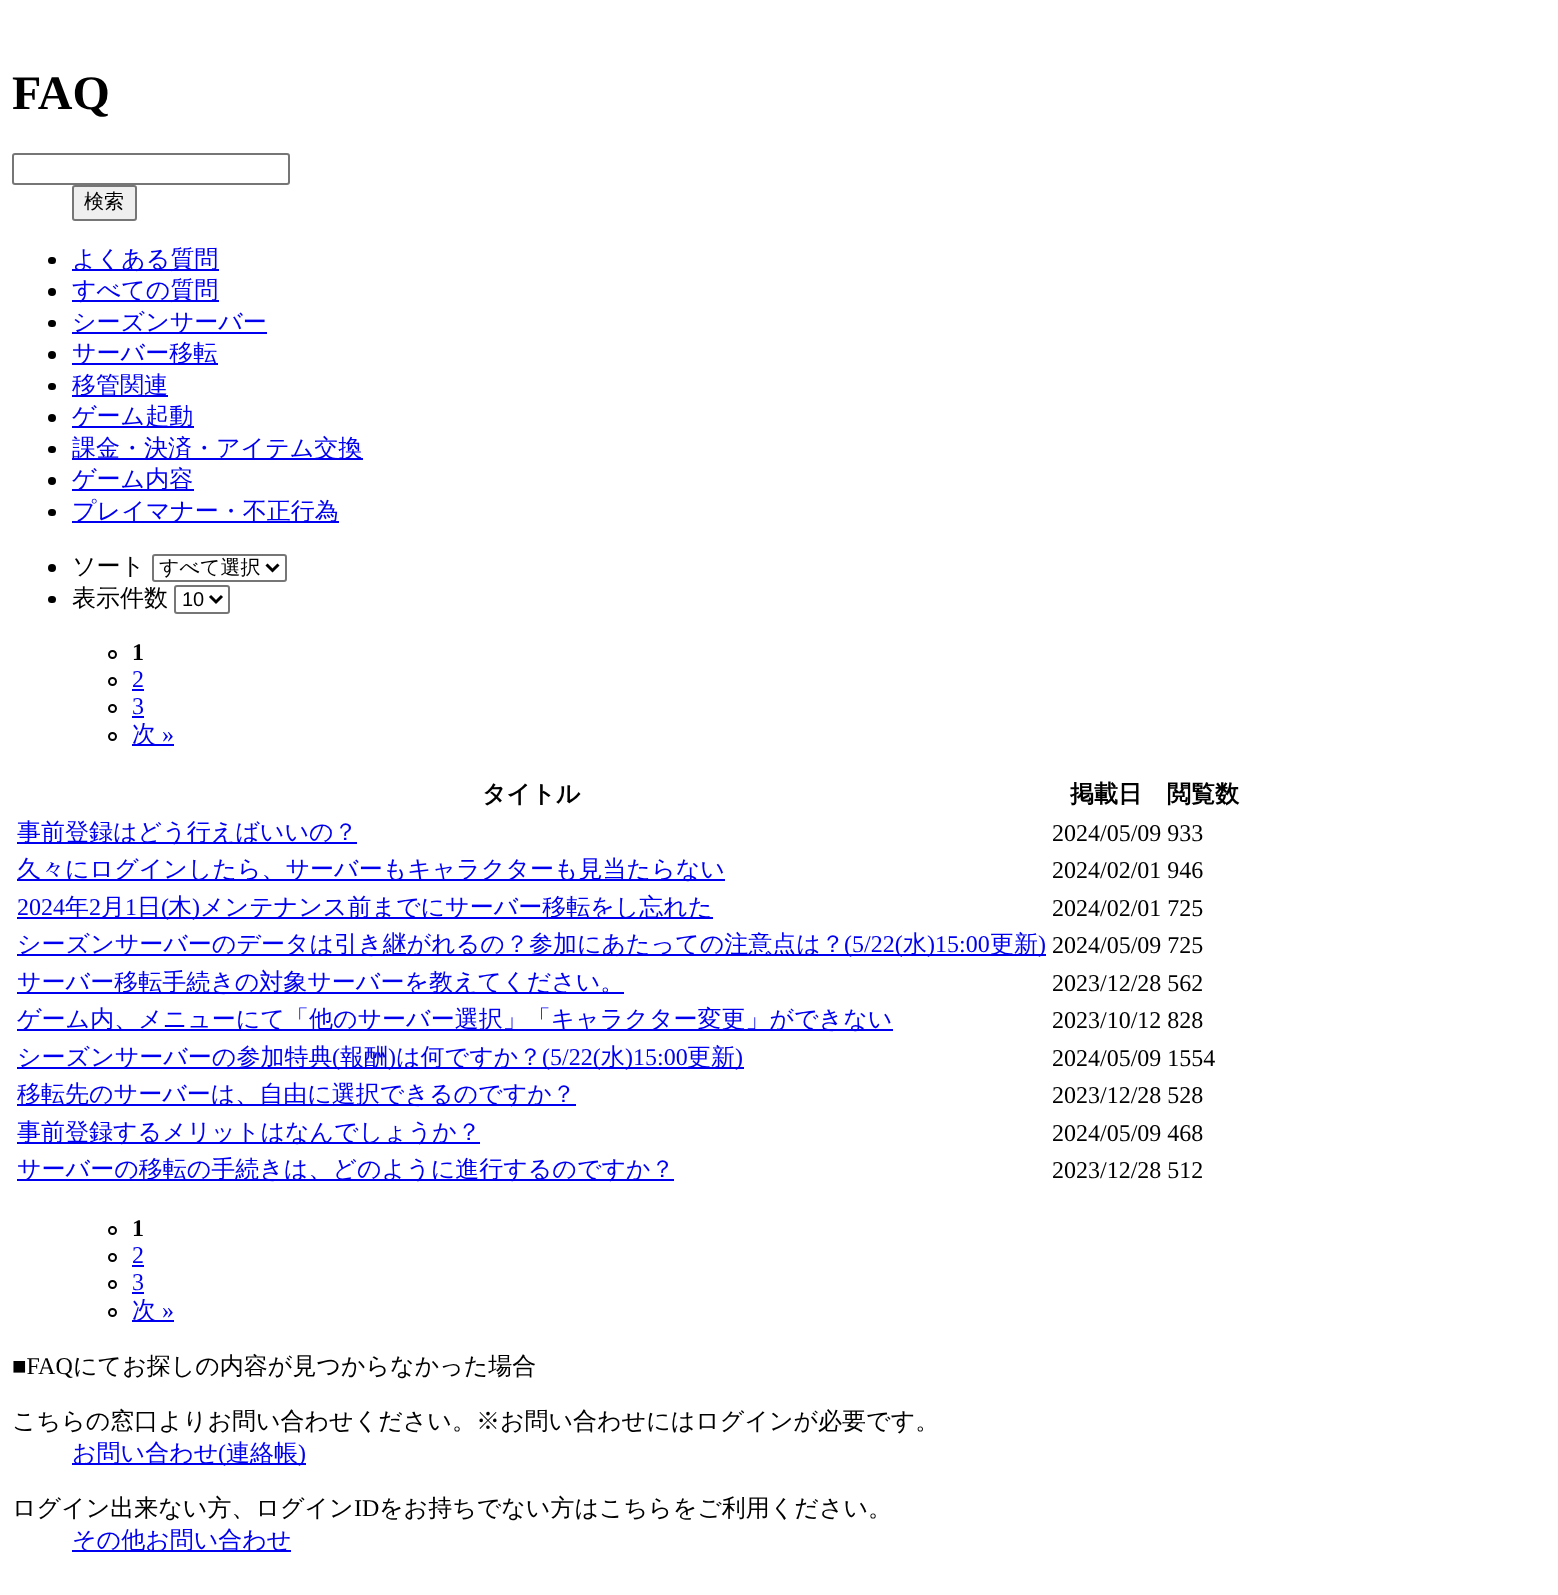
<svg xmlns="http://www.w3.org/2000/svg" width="1558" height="1595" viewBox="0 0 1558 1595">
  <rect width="100%" height="100%" fill="#ffffff"/>
  <text x="12" y="109" font-family="Liberation Serif" font-size="48" font-weight="bold" fill="#000000">FAQ</text>
  <rect x="13" y="154" width="276" height="30" rx="2" fill="none" stroke="#767676" stroke-width="2"/>
  <rect x="73" y="186" width="63" height="34" rx="2" fill="#efefef" stroke="#767676" stroke-width="2"/>
  <text x="84" y="208" font-family="WenQuanYi Zen Hei" font-size="20" font-weight="500" fill="#000000">検索</text>
  <rect x="48" y="257" width="8" height="7" rx="3.5" fill="#000000"/>
  <rect x="72" y="269" width="147" height="2" fill="#0000ee"/>
  <text x="72" y="267" font-family="WenQuanYi Zen Hei" font-size="24" font-weight="500" fill="#0000ee">よくある質問</text>
  <circle cx="52" cy="292" r="4" fill="#000000"/>
  <rect x="72" y="300" width="147" height="2" fill="#0000ee"/>
  <text x="72" y="298" font-family="WenQuanYi Zen Hei" font-size="24" font-weight="500" fill="#0000ee">すべての質問</text>
  <rect x="48" y="320" width="8" height="7" rx="3.5" fill="#000000"/>
  <rect x="72" y="332" width="195" height="2" fill="#0000ee"/>
  <text x="72" y="330" font-family="WenQuanYi Zen Hei" font-size="24" font-weight="500" fill="#0000ee">シーズンサーバー</text>
  <circle cx="52" cy="355" r="4" fill="#000000"/>
  <rect x="72" y="363" width="146" height="2" fill="#0000ee"/>
  <text x="72" y="361" font-family="WenQuanYi Zen Hei" font-size="24" font-weight="500" fill="#0000ee">サーバー移転</text>
  <rect x="48" y="383" width="8" height="7" rx="3.5" fill="#000000"/>
  <rect x="72" y="395" width="96" height="2" fill="#0000ee"/>
  <text x="72" y="393" font-family="WenQuanYi Zen Hei" font-size="24" font-weight="500" fill="#0000ee">移管関連</text>
  <circle cx="52" cy="418" r="4" fill="#000000"/>
  <rect x="72" y="426" width="122" height="2" fill="#0000ee"/>
  <text x="72" y="424" font-family="WenQuanYi Zen Hei" font-size="24" font-weight="500" fill="#0000ee">ゲーム起動</text>
  <rect x="48" y="446" width="8" height="7" rx="3.5" fill="#000000"/>
  <rect x="72" y="458" width="291" height="2" fill="#0000ee"/>
  <text x="72" y="456" font-family="WenQuanYi Zen Hei" font-size="24" font-weight="500" fill="#0000ee">課金・決済・アイテム交換</text>
  <circle cx="52" cy="481" r="4" fill="#000000"/>
  <rect x="72" y="489" width="122" height="2" fill="#0000ee"/>
  <text x="72" y="487" font-family="WenQuanYi Zen Hei" font-size="24" font-weight="500" fill="#0000ee">ゲーム内容</text>
  <rect x="48" y="509" width="8" height="7" rx="3.5" fill="#000000"/>
  <rect x="72" y="521" width="267" height="2" fill="#0000ee"/>
  <text x="72" y="519" font-family="WenQuanYi Zen Hei" font-size="24" font-weight="500" fill="#0000ee">プレイマナー・不正行為</text>
  <circle cx="52" cy="568" r="4" fill="#000000"/>
  <text x="72" y="574" font-family="WenQuanYi Zen Hei" font-size="24" font-weight="500" fill="#000000">ソート</text>
  <rect x="153" y="555" width="133" height="26" rx="2" fill="none" stroke="#767676" stroke-width="2"/>
  <path d="M266.5 564.5L272.5 570.5L278.5 564.5" fill="none" stroke="#000000" stroke-width="3"/>
  <text x="159" y="574" font-family="WenQuanYi Zen Hei" font-size="20" font-weight="500" fill="#000000">すべて選択</text>
  <rect x="48" y="596" width="8" height="7" rx="3.5" fill="#000000"/>
  <text x="72" y="606" font-family="WenQuanYi Zen Hei" font-size="24" font-weight="500" fill="#000000">表示件数</text>
  <rect x="175" y="586" width="54" height="27" rx="2" fill="none" stroke="#767676" stroke-width="2"/>
  <path d="M210 596L216 602L222 596" fill="none" stroke="#000000" stroke-width="3"/>
  <text x="182" y="606" font-family="Liberation Sans" font-size="20" fill="#000000">10</text>
  <circle cx="112.5" cy="654.5" r="3.5" fill="none" stroke="#000000" stroke-width="2"/>
  <text x="132" y="660" font-family="Liberation Serif" font-size="24" font-weight="bold" fill="#000000">1</text>
  <circle cx="112.5" cy="681.5" r="3.5" fill="none" stroke="#000000" stroke-width="2"/>
  <text x="132" y="687" font-family="Liberation Serif" font-size="24" fill="#0000ee">2</text>
  <rect x="132" y="689" width="12" height="2" fill="#0000ee"/>
  <circle cx="112.5" cy="708.5" r="3.5" fill="none" stroke="#000000" stroke-width="2"/>
  <text x="132" y="714" font-family="Liberation Serif" font-size="24" fill="#0000ee">3</text>
  <rect x="132" y="716" width="12" height="2" fill="#0000ee"/>
  <circle cx="112.5" cy="736.5" r="3.5" fill="none" stroke="#000000" stroke-width="2"/>
  <rect x="132" y="744" width="42" height="2" fill="#0000ee"/>
  <text x="132" y="742" font-family="WenQuanYi Zen Hei" font-size="24" font-weight="500" fill="#0000ee">次</text>
  <text x="162" y="742" font-family="Liberation Serif" font-size="24" fill="#0000ee">»</text>
  <text x="482" y="802" font-family="WenQuanYi Zen Hei" font-size="24" font-weight="bold" fill="#000000">タイトル</text>
  <text x="1070" y="802" font-family="WenQuanYi Zen Hei" font-size="24" font-weight="bold" fill="#000000">掲載日</text>
  <text x="1167" y="802" font-family="WenQuanYi Zen Hei" font-size="24" font-weight="bold" fill="#000000">閲覧数</text>
  <rect x="17" y="842" width="340" height="2" fill="#0000ee"/>
  <text x="17" y="840" font-family="WenQuanYi Zen Hei" font-size="24" font-weight="500" fill="#0000ee">事前登録はどう行えばいいの？</text>
  <text x="1052" y="841" font-family="Liberation Serif" font-size="24" fill="#000000">2024/05/09 933</text>
  <rect x="17" y="879" width="708" height="2" fill="#0000ee"/>
  <text x="17" y="877" font-family="WenQuanYi Zen Hei" font-size="24" font-weight="500" fill="#0000ee">久々にログインしたら、サーバーもキャラクターも見当たらない</text>
  <text x="1052" y="878" font-family="Liberation Serif" font-size="24" fill="#000000">2024/02/01 946</text>
  <text x="17" y="915" font-family="Liberation Serif" font-size="24" fill="#0000ee">2024</text>
  <rect x="17" y="917" width="696" height="2" fill="#0000ee"/>
  <text x="65" y="915" font-family="WenQuanYi Zen Hei" font-size="24" font-weight="500" fill="#0000ee">年</text>
  <text x="89" y="915" font-family="Liberation Serif" font-size="24" fill="#0000ee">2</text>
  <text x="101" y="915" font-family="WenQuanYi Zen Hei" font-size="24" font-weight="500" fill="#0000ee">月</text>
  <text x="125" y="915" font-family="Liberation Serif" font-size="24" fill="#0000ee">1</text>
  <text x="137" y="915" font-family="WenQuanYi Zen Hei" font-size="24" font-weight="500" fill="#0000ee">日</text>
  <text x="161" y="915" font-family="Liberation Serif" font-size="24" fill="#0000ee">(</text>
  <text x="168" y="915" font-family="WenQuanYi Zen Hei" font-size="24" font-weight="500" fill="#0000ee">木</text>
  <text x="192" y="915" font-family="Liberation Serif" font-size="24" fill="#0000ee">)</text>
  <text x="200" y="915" font-family="WenQuanYi Zen Hei" font-size="24" font-weight="500" fill="#0000ee">メンテナンス前までにサーバー移転をし忘れた</text>
  <text x="1052" y="916" font-family="Liberation Serif" font-size="24" fill="#000000">2024/02/01 725</text>
  <rect x="17" y="954" width="1029" height="2" fill="#0000ee"/>
  <text x="17" y="952" font-family="WenQuanYi Zen Hei" font-size="24" font-weight="500" fill="#0000ee">シーズンサーバーのデータは引き継がれるの？参加にあたっての注意点は？</text>
  <text x="844" y="952" font-family="Liberation Serif" font-size="24" fill="#0000ee">(5/22(</text>
  <text x="903" y="952" font-family="WenQuanYi Zen Hei" font-size="24" font-weight="500" fill="#0000ee">水</text>
  <text x="927" y="952" font-family="Liberation Serif" font-size="24" fill="#0000ee">)15:00</text>
  <text x="990" y="952" font-family="WenQuanYi Zen Hei" font-size="24" font-weight="500" fill="#0000ee">更新</text>
  <text x="1038" y="952" font-family="Liberation Serif" font-size="24" fill="#0000ee">)</text>
  <text x="1052" y="953" font-family="Liberation Serif" font-size="24" fill="#000000">2024/05/09 725</text>
  <rect x="17" y="992" width="607" height="2" fill="#0000ee"/>
  <text x="17" y="990" font-family="WenQuanYi Zen Hei" font-size="24" font-weight="500" fill="#0000ee">サーバー移転手続きの対象サーバーを教えてください。</text>
  <text x="1052" y="991" font-family="Liberation Serif" font-size="24" fill="#000000">2023/12/28 562</text>
  <rect x="17" y="1029" width="876" height="2" fill="#0000ee"/>
  <text x="17" y="1027" font-family="WenQuanYi Zen Hei" font-size="24" font-weight="500" fill="#0000ee">ゲーム内、メニューにて「他のサーバー選択」「キャラクター変更」ができない</text>
  <text x="1052" y="1028" font-family="Liberation Serif" font-size="24" fill="#000000">2023/10/12 828</text>
  <rect x="17" y="1067" width="727" height="2" fill="#0000ee"/>
  <text x="17" y="1065" font-family="WenQuanYi Zen Hei" font-size="24" font-weight="500" fill="#0000ee">シーズンサーバーの参加特典</text>
  <text x="332" y="1065" font-family="Liberation Serif" font-size="24" fill="#0000ee">(</text>
  <text x="340" y="1065" font-family="WenQuanYi Zen Hei" font-size="24" font-weight="500" fill="#0000ee">報酬</text>
  <text x="388" y="1065" font-family="Liberation Serif" font-size="24" fill="#0000ee">)</text>
  <text x="396" y="1065" font-family="WenQuanYi Zen Hei" font-size="24" font-weight="500" fill="#0000ee">は何ですか？</text>
  <text x="542" y="1065" font-family="Liberation Serif" font-size="24" fill="#0000ee">(5/22(</text>
  <text x="601" y="1065" font-family="WenQuanYi Zen Hei" font-size="24" font-weight="500" fill="#0000ee">水</text>
  <text x="625" y="1065" font-family="Liberation Serif" font-size="24" fill="#0000ee">)15:00</text>
  <text x="687" y="1065" font-family="WenQuanYi Zen Hei" font-size="24" font-weight="500" fill="#0000ee">更新</text>
  <text x="735" y="1065" font-family="Liberation Serif" font-size="24" fill="#0000ee">)</text>
  <text x="1052" y="1066" font-family="Liberation Serif" font-size="24" fill="#000000">2024/05/09 1554</text>
  <rect x="17" y="1104" width="559" height="2" fill="#0000ee"/>
  <text x="17" y="1102" font-family="WenQuanYi Zen Hei" font-size="24" font-weight="500" fill="#0000ee">移転先のサーバーは、自由に選択できるのですか？</text>
  <text x="1052" y="1103" font-family="Liberation Serif" font-size="24" fill="#000000">2023/12/28 528</text>
  <rect x="17" y="1142" width="463" height="2" fill="#0000ee"/>
  <text x="17" y="1140" font-family="WenQuanYi Zen Hei" font-size="24" font-weight="500" fill="#0000ee">事前登録するメリットはなんでしょうか？</text>
  <text x="1052" y="1141" font-family="Liberation Serif" font-size="24" fill="#000000">2024/05/09 468</text>
  <rect x="17" y="1179" width="657" height="2" fill="#0000ee"/>
  <text x="17" y="1177" font-family="WenQuanYi Zen Hei" font-size="24" font-weight="500" fill="#0000ee">サーバーの移転の手続きは、どのように進行するのですか？</text>
  <text x="1052" y="1178" font-family="Liberation Serif" font-size="24" fill="#000000">2023/12/28 512</text>
  <circle cx="112.5" cy="1230.5" r="3.5" fill="none" stroke="#000000" stroke-width="2"/>
  <text x="132" y="1236" font-family="Liberation Serif" font-size="24" font-weight="bold" fill="#000000">1</text>
  <circle cx="112.5" cy="1257.5" r="3.5" fill="none" stroke="#000000" stroke-width="2"/>
  <text x="132" y="1263" font-family="Liberation Serif" font-size="24" fill="#0000ee">2</text>
  <rect x="132" y="1265" width="12" height="2" fill="#0000ee"/>
  <circle cx="112.5" cy="1284.5" r="3.5" fill="none" stroke="#000000" stroke-width="2"/>
  <text x="132" y="1290" font-family="Liberation Serif" font-size="24" fill="#0000ee">3</text>
  <rect x="132" y="1292" width="12" height="2" fill="#0000ee"/>
  <circle cx="112.5" cy="1312.5" r="3.5" fill="none" stroke="#000000" stroke-width="2"/>
  <rect x="132" y="1320" width="42" height="2" fill="#0000ee"/>
  <text x="132" y="1318" font-family="WenQuanYi Zen Hei" font-size="24" font-weight="500" fill="#0000ee">次</text>
  <text x="162" y="1318" font-family="Liberation Serif" font-size="24" fill="#0000ee">»</text>
  <text x="12" y="1374" font-family="Liberation Serif" font-size="24" fill="#000000">■FAQ</text>
  <text x="73" y="1374" font-family="WenQuanYi Zen Hei" font-size="24" font-weight="500" fill="#000000">にてお探しの内容が見つからなかった場合</text>
  <text x="12" y="1429" font-family="WenQuanYi Zen Hei" font-size="24" font-weight="500" fill="#000000">こちらの窓口よりお問い合わせください。※お問い合わせにはログインが必要です。</text>
  <rect x="72" y="1463" width="234" height="2" fill="#0000ee"/>
  <text x="72" y="1461" font-family="WenQuanYi Zen Hei" font-size="24" font-weight="500" fill="#0000ee">お問い合わせ</text>
  <text x="218" y="1461" font-family="Liberation Serif" font-size="24" fill="#0000ee">(</text>
  <text x="226" y="1461" font-family="WenQuanYi Zen Hei" font-size="24" font-weight="500" fill="#0000ee">連絡帳</text>
  <text x="298" y="1461" font-family="Liberation Serif" font-size="24" fill="#0000ee">)</text>
  <text x="12" y="1516" font-family="WenQuanYi Zen Hei" font-size="24" font-weight="500" fill="#000000">ログイン出来ない方、ログイン</text>
  <text x="354" y="1516" font-family="Liberation Serif" font-size="24" fill="#000000">ID</text>
  <text x="379" y="1516" font-family="WenQuanYi Zen Hei" font-size="24" font-weight="500" fill="#000000">をお持ちでない方はこちらをご利用ください。</text>
  <rect x="72" y="1550" width="219" height="2" fill="#0000ee"/>
  <text x="72" y="1548" font-family="WenQuanYi Zen Hei" font-size="24" font-weight="500" fill="#0000ee">その他お問い合わせ</text>
</svg>
